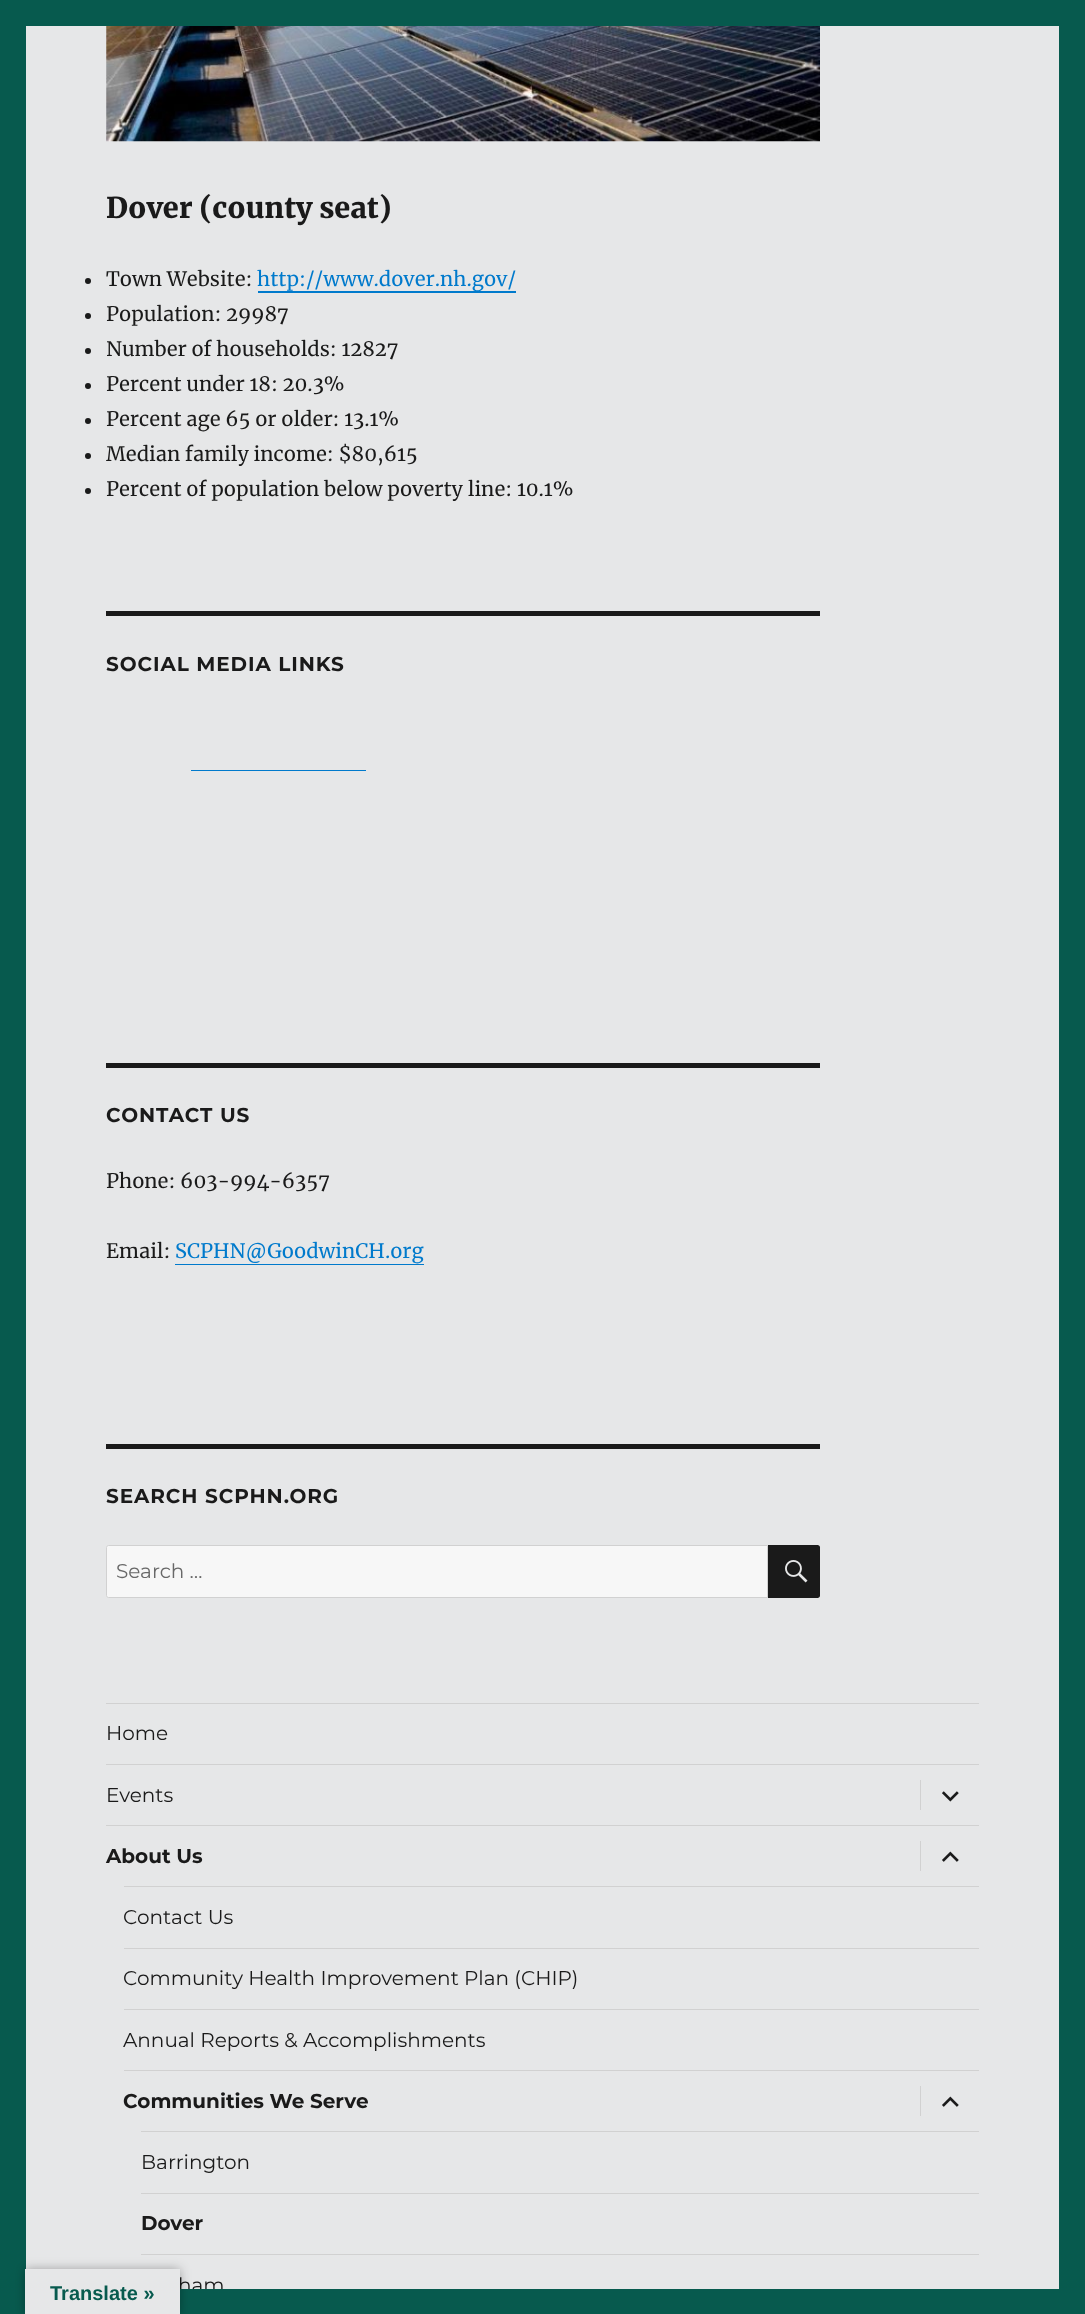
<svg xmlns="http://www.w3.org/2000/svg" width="1085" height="2314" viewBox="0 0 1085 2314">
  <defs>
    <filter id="blur1" x="-50%" y="-200%" width="200%" height="500%"><feGaussianBlur stdDeviation="5.5"/></filter>
  </defs>
  <rect width="100%" height="100%" fill="#075a4e"/>
  <rect x="26" y="26" width="1033" height="2263" fill="#e6e7e8"/>
  <rect x="141" y="2254" width="838" height="1" fill="#d1d1d1"/>
  <text x="178" y="2292" font-family="'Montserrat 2'" font-size="20" font-weight="100" fill="#1a1a1a">ham</text>
  <rect x="180" y="2289" width="44" height="4" fill="#075a4e"/>
  <rect x="25" y="2269" width="155" height="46" fill="#000000" fill-opacity="0.3" filter="url(#blur1)"/>
  <rect x="25" y="2269" width="155" height="45" fill="#e6e7e8"/>
  <text x="50" y="2300" font-family="Liberation Sans" font-size="20" font-weight="bold" fill="#075a4e">Translate »</text>
  <image x="106" y="26" width="714" height="116" href="img1.png"/>
  <text x="106" y="218" font-family="Merriweather" font-size="28.75" font-weight="900" fill="#1a1a1a">Dover (county seat)</text>
  <circle cx="88" cy="281" r="3" fill="#1a1a1a"/>
  <text x="106" y="286" font-family="Merriweather" font-size="20" fill="#1a1a1a">Town Website:</text>
  <rect x="258" y="291" width="258" height="2" fill="#007acc"/>
  <text x="257" y="286" font-family="Merriweather" font-size="20" fill="#007acc">http://www.dover.nh.gov/</text>
  <circle cx="88" cy="316" r="3" fill="#1a1a1a"/>
  <text x="106" y="321" font-family="Merriweather" font-size="20" fill="#1a1a1a">Population: 29987</text>
  <circle cx="88" cy="351" r="3" fill="#1a1a1a"/>
  <text x="106" y="356" font-family="Merriweather" font-size="20" fill="#1a1a1a">Number of households: 12827</text>
  <circle cx="88" cy="386" r="3" fill="#1a1a1a"/>
  <text x="106" y="391" font-family="Merriweather" font-size="20" fill="#1a1a1a">Percent under 18: 20.3%</text>
  <circle cx="88" cy="421" r="3" fill="#1a1a1a"/>
  <text x="106" y="426" font-family="Merriweather" font-size="20" fill="#1a1a1a">Percent age 65 or older: 13.1%</text>
  <circle cx="88" cy="456" r="3" fill="#1a1a1a"/>
  <text x="106" y="461" font-family="Merriweather" font-size="20" fill="#1a1a1a">Median family income: $80,615</text>
  <circle cx="88" cy="491" r="3" fill="#1a1a1a"/>
  <text x="106" y="496" font-family="Merriweather" font-size="20" fill="#1a1a1a">Percent of population below poverty line: 10.1%</text>
  <rect x="106" y="611" width="714" height="5" fill="#1a1a1a"/>
  <text x="106" y="671" font-family="Montserrat" font-size="20" font-weight="100" letter-spacing="0.9" fill="#1a1a1a">SOCIAL MEDIA LINKS</text>
  <path d="M191 721V771H366V770H191Z" fill="#007acc"/>
  <rect x="106" y="1063" width="714" height="5" fill="#1a1a1a"/>
  <text x="106" y="1122" font-family="Montserrat" font-size="20" font-weight="100" letter-spacing="0.9" fill="#1a1a1a">CONTACT US</text>
  <text x="106" y="1188" font-family="Merriweather" font-size="20" fill="#1a1a1a">Phone: 603-994-6357</text>
  <text x="106" y="1258" font-family="Merriweather" font-size="20" fill="#1a1a1a">Email:</text>
  <text x="175" y="1258" font-family="Merriweather" font-size="20" fill="#007acc">SCPHN@GoodwinCH.org</text>
  <path d="M175 1264V1265H424V1240V1264Z" fill="#007acc"/>
  <rect x="106" y="1444" width="714" height="5" fill="#1a1a1a"/>
  <text x="106" y="1503" font-family="Montserrat" font-size="20" font-weight="100" letter-spacing="0.9" fill="#1a1a1a">SEARCH SCPHN.ORG</text>
  <path d="M108.5 1545.5H767.5V1597.5H108.5C107.5 1597.5 106.5 1596.5 106.5 1595.5V1547.5C106.5 1546.5 107.5 1545.5 108.5 1545.5Z" fill="#f7f7f7" stroke="#d1d1d1"/>
  <text x="116" y="1578" font-family="'Montserrat 2'" font-size="20" font-weight="100" fill="#686868">Search …</text>
  <path d="M768 1545H817.5C819 1545 820 1546 820 1547.5V1595.5C820 1597 819 1598 817.5 1598H768Z" fill="#1a1a1a"/>
  <image x="785" y="1560" width="23" height="23" href="img2.png"/>
  <rect x="106" y="1703" width="873" height="1" fill="#d1d1d1"/>
  <text x="106" y="1740" font-family="'Montserrat 2'" font-size="20" font-weight="100" fill="#1a1a1a">Home</text>
  <rect x="106" y="1764" width="873" height="1" fill="#d1d1d1"/>
  <text x="106" y="1802" font-family="'Montserrat 2'" font-size="20" font-weight="100" fill="#1a1a1a">Events</text>
  <rect x="920" y="1780" width="1" height="30" fill="#d1d1d1"/>
  <image x="942" y="1791" width="17" height="11" href="img3.png"/>
  <rect x="106" y="1825" width="873" height="1" fill="#d1d1d1"/>
  <text x="106" y="1863" font-family="Montserrat" font-size="20" font-weight="100" fill="#1a1a1a">About Us</text>
  <rect x="920" y="1841" width="1" height="30" fill="#d1d1d1"/>
  <image x="942" y="1851" width="17" height="11" href="img4.png"/>
  <rect x="124" y="1886" width="855" height="1" fill="#d1d1d1"/>
  <text x="123" y="1924" font-family="'Montserrat 2'" font-size="20" font-weight="100" fill="#1a1a1a">Contact Us</text>
  <rect x="124" y="1948" width="855" height="1" fill="#d1d1d1"/>
  <text x="123" y="1985" font-family="'Montserrat 2'" font-size="20" font-weight="100" fill="#1a1a1a">Community Health Improvement Plan (CHIP)</text>
  <rect x="124" y="2009" width="855" height="1" fill="#d1d1d1"/>
  <text x="123" y="2047" font-family="'Montserrat 2'" font-size="20" font-weight="100" fill="#1a1a1a">Annual Reports &amp; Accomplishments</text>
  <rect x="124" y="2070" width="855" height="1" fill="#d1d1d1"/>
  <text x="123" y="2108" font-family="Montserrat" font-size="20" font-weight="100" fill="#1a1a1a">Communities We Serve</text>
  <rect x="920" y="2086" width="1" height="30" fill="#d1d1d1"/>
  <image x="942" y="2096" width="17" height="11" href="img4.png"/>
  <rect x="141" y="2131" width="838" height="1" fill="#d1d1d1"/>
  <text x="141" y="2169" font-family="'Montserrat 2'" font-size="20" font-weight="100" fill="#1a1a1a">Barrington</text>
  <rect x="141" y="2193" width="838" height="1" fill="#d1d1d1"/>
  <text x="141" y="2230" font-family="Montserrat" font-size="20" font-weight="100" fill="#1a1a1a">Dover</text>
</svg>
